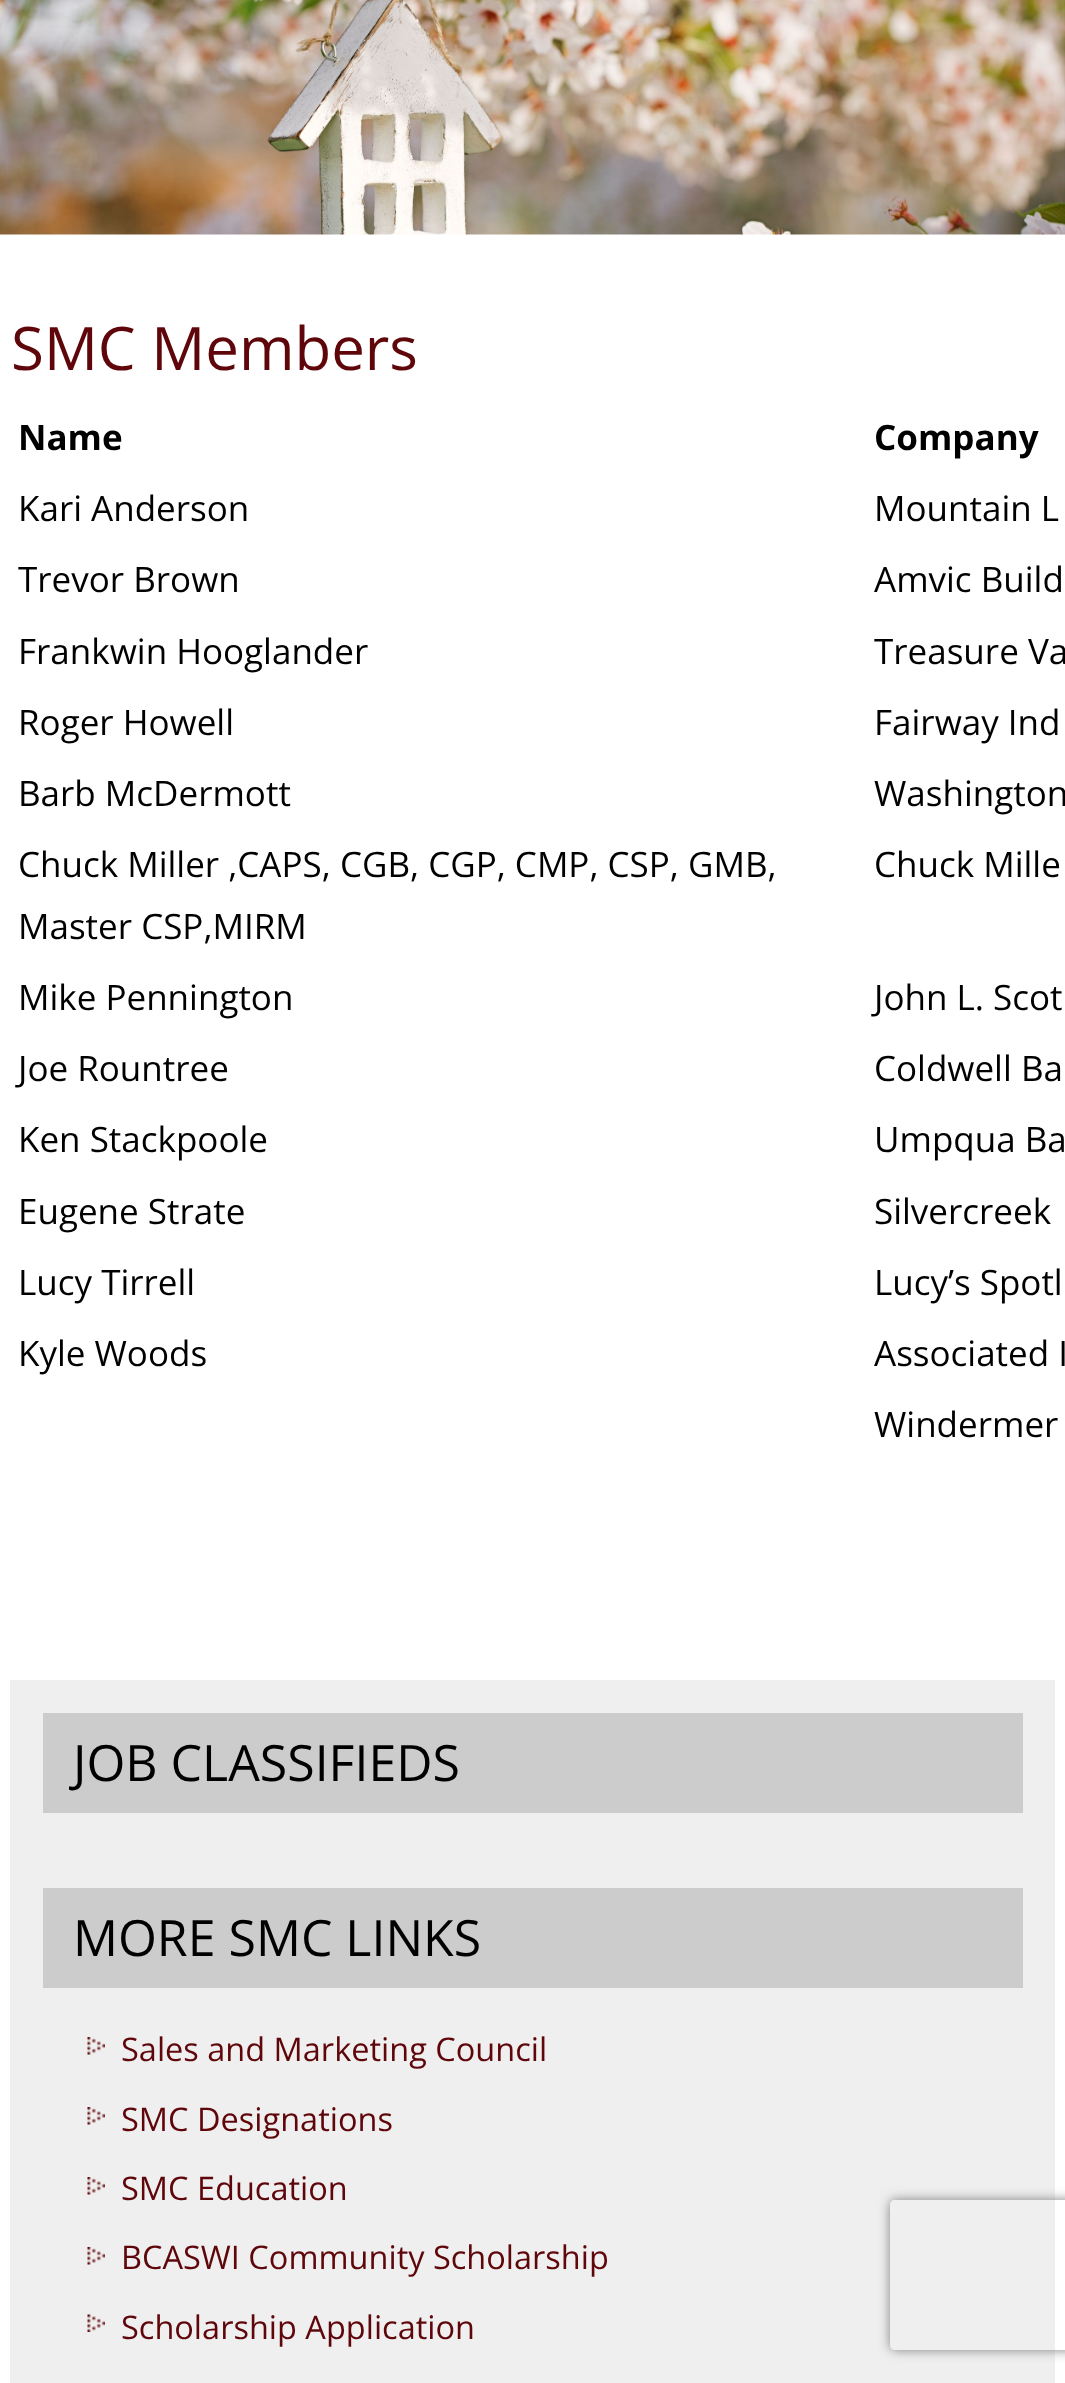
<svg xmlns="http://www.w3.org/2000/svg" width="1065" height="2383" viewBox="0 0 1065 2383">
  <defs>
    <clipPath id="clip1"><path d="M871 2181H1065V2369H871ZM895 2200H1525C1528 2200 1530 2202 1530 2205V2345C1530 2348 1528 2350 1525 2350H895C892 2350 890 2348 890 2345V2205C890 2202 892 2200 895 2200Z" clip-rule="evenodd"/></clipPath>
    <filter id="blur1" x="-50%" y="-200%" width="200%" height="500%"><feGaussianBlur stdDeviation="6"/></filter>
  </defs>
  <rect width="100%" height="100%" fill="#ffffff"/>
  <image x="0" y="0" width="1065" height="235" href="img1.png"/>
  <text x="11" y="370" font-family="Open Sans" font-size="60" fill="#5f060b">SMC Members</text>
  <text x="18" y="450" font-family="Open Sans" font-size="35" font-weight="bold" fill="#000000">Name</text>
  <text x="874" y="450" font-family="Open Sans" font-size="35" font-weight="bold" fill="#000000">Company</text>
  <text x="18" y="521" font-family="Open Sans" font-size="35" fill="#000000">Kari Anderson</text>
  <text x="874" y="521" font-family="Open Sans" font-size="35" fill="#000000">Mountain L</text>
  <text x="18" y="592" font-family="Open Sans" font-size="35" fill="#000000">Trevor Brown</text>
  <text x="874" y="592" font-family="Open Sans" font-size="35" fill="#000000">Amvic Build</text>
  <text x="18" y="664" font-family="Open Sans" font-size="35" fill="#000000">Frankwin Hooglander</text>
  <text x="874" y="664" font-family="Open Sans" font-size="35" fill="#000000">Treasure Va</text>
  <text x="18" y="735" font-family="Open Sans" font-size="35" fill="#000000">Roger Howell</text>
  <text x="874" y="735" font-family="Open Sans" font-size="35" fill="#000000">Fairway Ind</text>
  <text x="18" y="806" font-family="Open Sans" font-size="35" fill="#000000">Barb McDermott</text>
  <text x="874" y="806" font-family="Open Sans" font-size="35" fill="#000000">Washington</text>
  <text x="18" y="877" font-family="Open Sans" font-size="35" fill="#000000">Chuck Miller ,CAPS, CGB, CGP, CMP, CSP, GMB,</text>
  <text x="18" y="939" font-family="Open Sans" font-size="35" fill="#000000">Master CSP,MIRM</text>
  <text x="874" y="877" font-family="Open Sans" font-size="35" fill="#000000">Chuck Mille</text>
  <text x="18" y="1010" font-family="Open Sans" font-size="35" fill="#000000">Mike Pennington</text>
  <text x="874" y="1010" font-family="Open Sans" font-size="35" fill="#000000">John L. Scot</text>
  <text x="18" y="1081" font-family="Open Sans" font-size="35" fill="#000000">Joe Rountree</text>
  <text x="874" y="1081" font-family="Open Sans" font-size="35" fill="#000000">Coldwell Ba</text>
  <text x="18" y="1152" font-family="Open Sans" font-size="35" fill="#000000">Ken Stackpoole</text>
  <text x="874" y="1152" font-family="Open Sans" font-size="35" fill="#000000">Umpqua Ba</text>
  <text x="18" y="1224" font-family="Open Sans" font-size="35" fill="#000000">Eugene Strate</text>
  <text x="874" y="1224" font-family="Open Sans" font-size="35" fill="#000000">Silvercreek</text>
  <text x="18" y="1295" font-family="Open Sans" font-size="35" fill="#000000">Lucy Tirrell</text>
  <text x="874" y="1295" font-family="Open Sans" font-size="35" fill="#000000">Lucy’s Spotl</text>
  <text x="18" y="1366" font-family="Open Sans" font-size="35" fill="#000000">Kyle Woods</text>
  <text x="874" y="1366" font-family="Open Sans" font-size="35" fill="#000000">Associated I</text>
  <text x="874" y="1437" font-family="Open Sans" font-size="35" fill="#000000">Windermer</text>
  <rect x="10" y="1680" width="1045" height="703" fill="#efefef"/>
  <rect x="43" y="1713" width="980" height="100" fill="#cccccc"/>
  <text x="73" y="1781" font-family="Open Sans" font-size="50" fill="#000000">JOB CLASSIFIEDS</text>
  <rect x="43" y="1888" width="980" height="100" fill="#cccccc"/>
  <text x="73" y="1956" font-family="Open Sans" font-size="50" fill="#000000">MORE SMC LINKS</text>
  <image x="87" y="2037" width="18" height="18" href="img2.png"/>
  <text x="121" y="2061" font-family="Open Sans" font-size="32.5" fill="#5f060b">Sales and Marketing Council</text>
  <image x="87" y="2107" width="18" height="18" href="img2.png"/>
  <text x="121" y="2131" font-family="Open Sans" font-size="32.5" fill="#5f060b">SMC Designations</text>
  <image x="87" y="2177" width="18" height="18" href="img2.png"/>
  <text x="121" y="2200" font-family="Open Sans" font-size="32.5" fill="#5f060b">SMC Education</text>
  <image x="87" y="2247" width="18" height="18" href="img2.png"/>
  <text x="121" y="2269" font-family="Open Sans" font-size="32.5" fill="#5f060b">BCASWI Community Scholarship</text>
  <image x="87" y="2314" width="18" height="18" href="img3.png"/>
  <text x="121" y="2339" font-family="Open Sans" font-size="32.5" fill="#5f060b">Scholarship Application</text>
  <g clip-path="url(#clip1)">
    <rect x="890" y="2200" width="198" height="150" rx="5" fill="#808080" filter="url(#blur1)"/>
  </g>
</svg>
